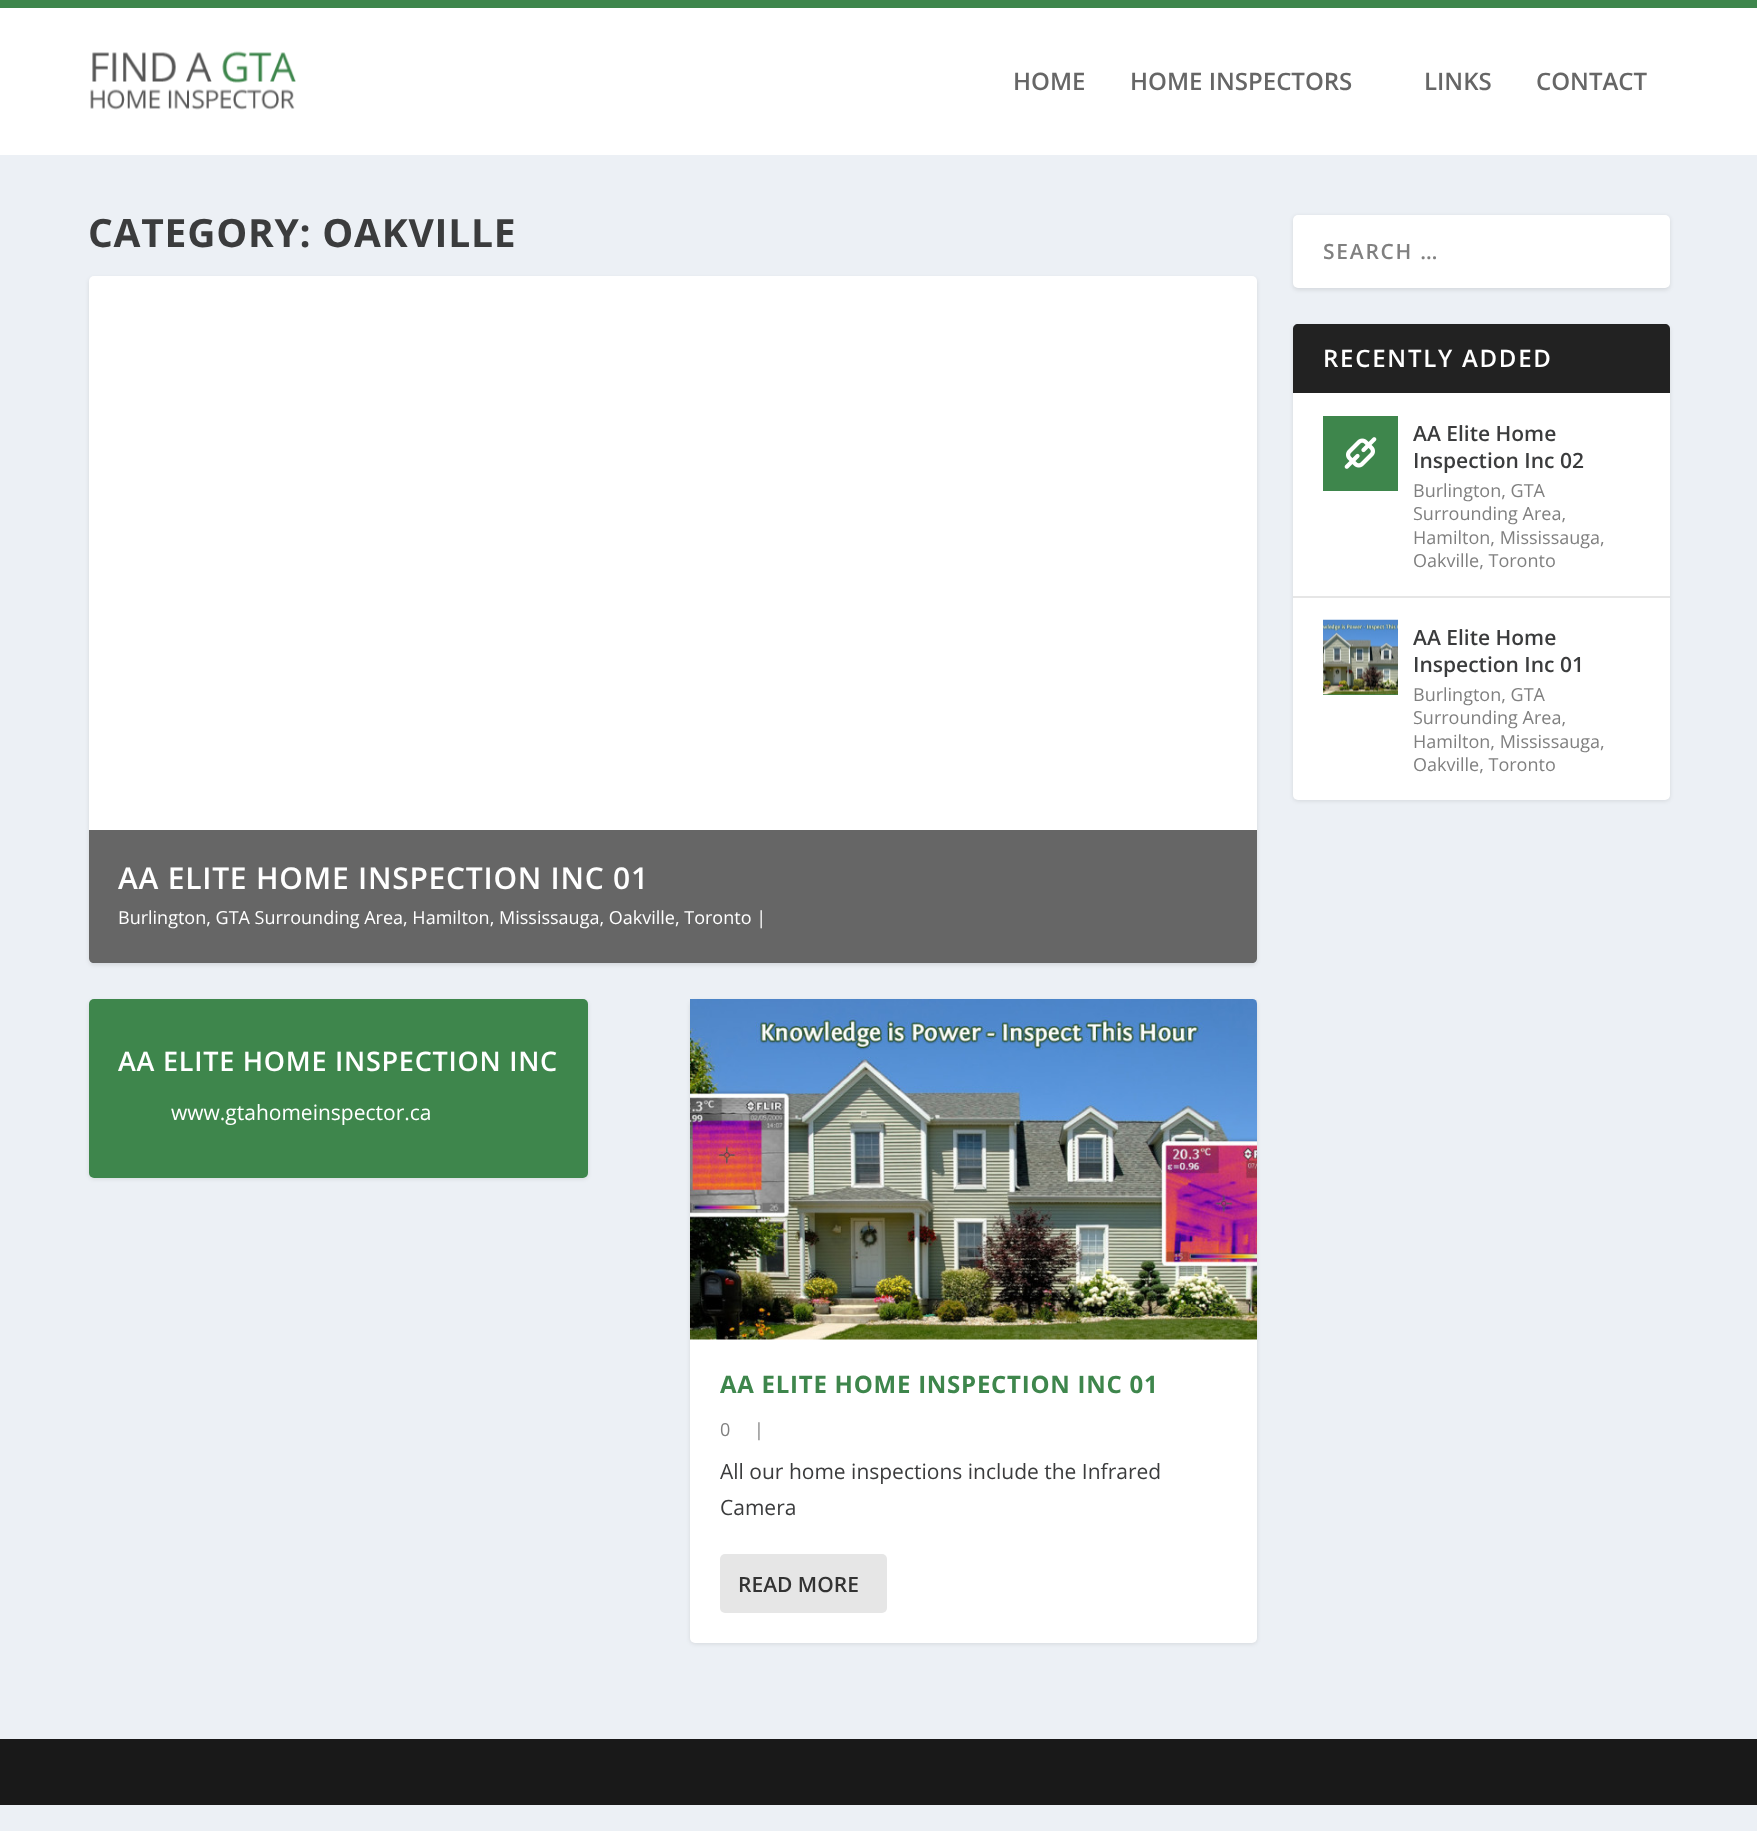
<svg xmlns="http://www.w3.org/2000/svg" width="1757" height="1831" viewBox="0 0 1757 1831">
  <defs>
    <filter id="blur1" x="-50%" y="-200%" width="200%" height="500%"><feGaussianBlur stdDeviation="2"/></filter>
    <clipPath id="clip1"><path d="M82 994H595V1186H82ZM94 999H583C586 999 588 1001 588 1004V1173C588 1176 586 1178 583 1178H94C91 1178 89 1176 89 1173V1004C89 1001 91 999 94 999Z" clip-rule="evenodd"/></clipPath>
  </defs>
  <rect width="100%" height="100%" fill="#ecf0f5"/>
  <rect x="0" y="8" width="1757" height="147" fill="#ffffff"/>
  <rect x="0" y="0" width="1757" height="8" fill="#3e864c"/>
  <image x="90" y="51" width="206" height="59" href="img1.png"/>
  <text x="1013" y="90" font-family="Open Sans" font-size="24" font-weight="600" fill="#666666">HOME</text>
  <text x="1130" y="90" font-family="Open Sans" font-size="24" font-weight="600" fill="#666666">HOME INSPECTORS</text>
  <text x="1424" y="90" font-family="Open Sans" font-size="24" font-weight="600" fill="#666666">LINKS</text>
  <text x="1536" y="90" font-family="Open Sans" font-size="24" font-weight="600" fill="#666666">CONTACT</text>
  <text x="88" y="247" font-family="Open Sans" font-size="39" font-weight="bold" letter-spacing="0.75" fill="#3b3c3d">CATEGORY: OAKVILLE</text>
  <rect x="89" y="278" width="1168" height="687" rx="5" fill="#000000" fill-opacity="0.1" filter="url(#blur1)"/>
  <rect x="89" y="276" width="1168" height="687" rx="5" fill="#ffffff"/>
  <path d="M89 830H1257V958C1257 961 1255 963 1252 963H94C91 963 89 961 89 958Z" fill="#000000" fill-opacity="0.6"/>
  <text x="118" y="889" font-family="Open Sans" font-size="30" font-weight="600" letter-spacing="0.75" fill="#ffffff">AA ELITE HOME INSPECTION INC 01</text>
  <text x="118" y="924" font-family="Open Sans" font-size="18" fill="#ffffff">Burlington, GTA Surrounding Area, Hamilton, Mississauga, Oakville, Toronto |</text>
  <g clip-path="url(#clip1)">
    <rect x="89" y="1001" width="499" height="178" rx="5" fill="#000000" fill-opacity="0.1" filter="url(#blur1)"/>
  </g>
  <rect x="89" y="999" width="499" height="179" rx="5" fill="#3e864c"/>
  <text x="118" y="1071" font-family="Open Sans" font-size="27" font-weight="600" letter-spacing="0.75" fill="#ffffff">AA ELITE HOME INSPECTION INC</text>
  <text x="171" y="1120" font-family="Open Sans" font-size="21" fill="#ffffff">www.gtahomeinspector.ca</text>
  <rect x="690" y="1001" width="567" height="643" rx="5" fill="#000000" fill-opacity="0.1" filter="url(#blur1)"/>
  <rect x="690" y="999" width="567" height="644" rx="5" fill="#ffffff"/>
  <image x="690" y="999" width="567" height="341" href="img2.png"/>
  <text x="720" y="1393" font-family="Open Sans" font-size="24" font-weight="bold" letter-spacing="0.75" fill="#3e864c">AA ELITE HOME INSPECTION INC 01</text>
  <text x="720" y="1436" font-family="Open Sans" font-size="18" fill="#808080">0</text>
  <text x="754" y="1436" font-family="Open Sans" font-size="18" fill="#808080">|</text>
  <text x="720" y="1479" font-family="Open Sans" font-size="21" fill="#3b3c3d">All our home inspections include the Infrared</text>
  <text x="720" y="1515" font-family="Open Sans" font-size="21" fill="#3b3c3d">Camera</text>
  <rect x="720" y="1554" width="167" height="59" rx="5" fill="#e6e6e6"/>
  <text x="738" y="1592" font-family="Open Sans" font-size="21" font-weight="600" fill="#333333">READ MORE</text>
  <rect x="1293" y="216" width="377" height="74" rx="5" fill="#000000" fill-opacity="0.1" filter="url(#blur1)"/>
  <rect x="1293" y="215" width="377" height="73" rx="5" fill="#ffffff"/>
  <text x="1323" y="259" font-family="Open Sans" font-size="21" font-weight="600" letter-spacing="1.75" fill="#808080">SEARCH …</text>
  <rect x="1293" y="326" width="377" height="475" rx="5" fill="#000000" fill-opacity="0.1" filter="url(#blur1)"/>
  <rect x="1293" y="324" width="377" height="476" rx="5" fill="#ffffff"/>
  <path d="M1298 324H1665C1668 324 1670 326 1670 329V393H1293V329C1293 326 1295 324 1298 324Z" fill="#222222"/>
  <text x="1323" y="367" font-family="Open Sans" font-size="24" font-weight="600" letter-spacing="1.75" fill="#ffffff">RECENTLY ADDED</text>
  <rect x="1293" y="596" width="377" height="2" fill="#e6e6e6"/>
  <rect x="1323" y="416" width="75" height="75" fill="#3e864c"/>
  <image x="1344" y="437" width="33" height="32" href="img3.png"/>
  <text x="1413" y="441" font-family="Open Sans" font-size="21" font-weight="600" fill="#3b3c3d">AA Elite Home</text>
  <text x="1413" y="468" font-family="Open Sans" font-size="21" font-weight="600" fill="#3b3c3d">Inspection Inc 02</text>
  <text x="1413" y="497" font-family="Open Sans" font-size="18" fill="#808080">Burlington, GTA</text>
  <text x="1413" y="520" font-family="Open Sans" font-size="18" fill="#808080">Surrounding Area,</text>
  <text x="1413" y="544" font-family="Open Sans" font-size="18" fill="#808080">Hamilton, Mississauga,</text>
  <text x="1413" y="567" font-family="Open Sans" font-size="18" fill="#808080">Oakville, Toronto</text>
  <rect x="1323" y="694" width="75" height="1" fill="#3e864c"/>
  <image x="1323" y="619" width="75" height="76" href="img4.png"/>
  <text x="1413" y="645" font-family="Open Sans" font-size="21" font-weight="600" fill="#3b3c3d">AA Elite Home</text>
  <text x="1413" y="672" font-family="Open Sans" font-size="21" font-weight="600" fill="#3b3c3d">Inspection Inc 01</text>
  <text x="1413" y="701" font-family="Open Sans" font-size="18" fill="#808080">Burlington, GTA</text>
  <text x="1413" y="724" font-family="Open Sans" font-size="18" fill="#808080">Surrounding Area,</text>
  <text x="1413" y="748" font-family="Open Sans" font-size="18" fill="#808080">Hamilton, Mississauga,</text>
  <text x="1413" y="771" font-family="Open Sans" font-size="18" fill="#808080">Oakville, Toronto</text>
  <rect x="0" y="1739" width="1757" height="66" fill="#191919"/>
</svg>
